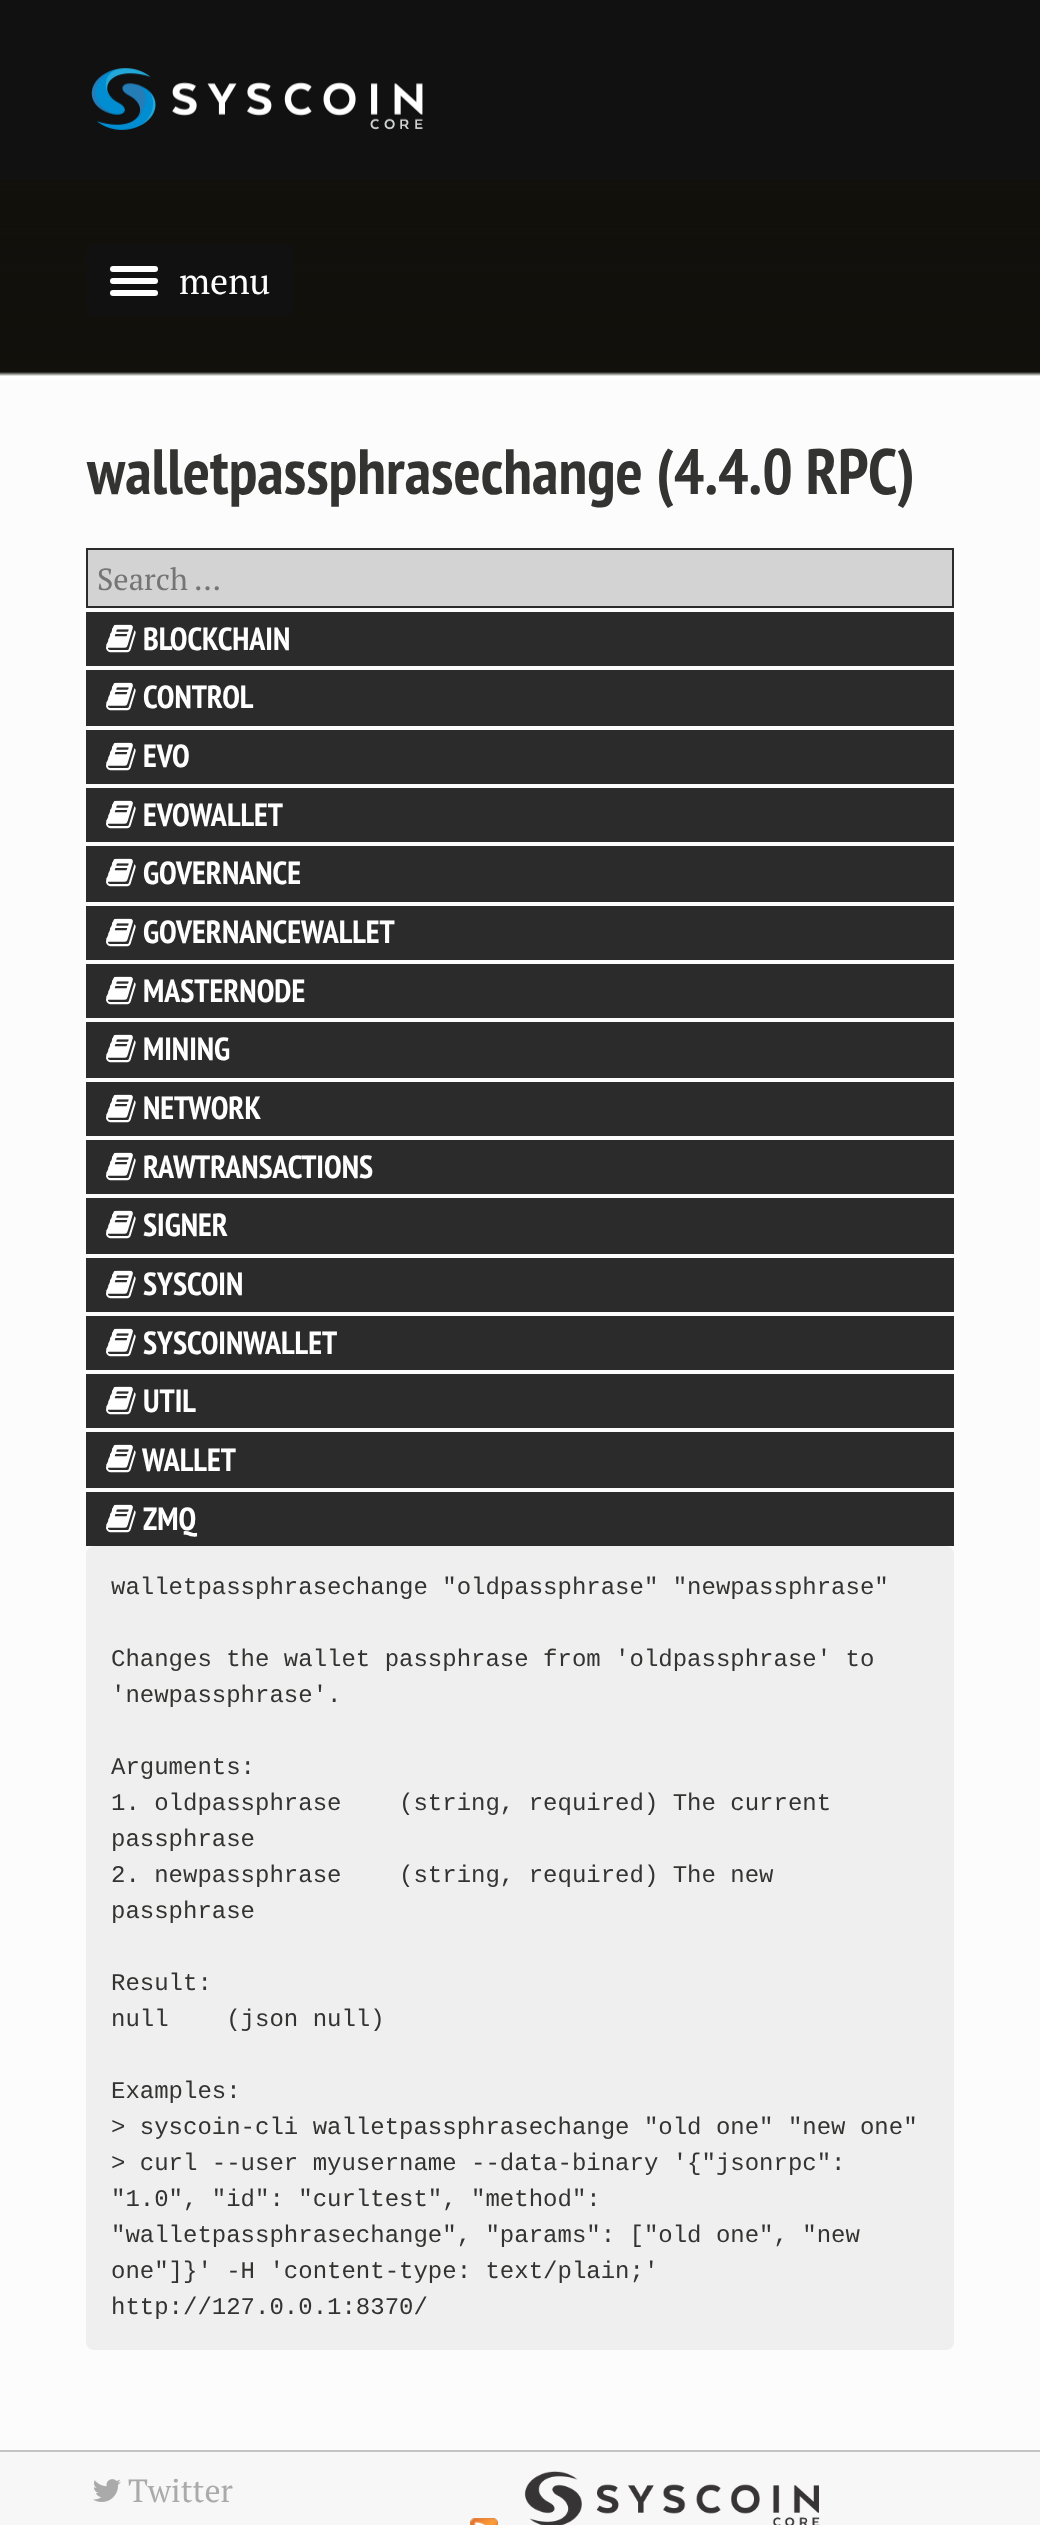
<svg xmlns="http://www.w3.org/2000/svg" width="1040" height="2525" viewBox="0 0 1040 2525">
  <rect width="100%" height="100%" fill="#f7f7f7"/>
  <rect x="0" y="0" width="1040" height="180" fill="#111111"/>
  <image x="0" y="180" width="1040" height="200" href="img1.png"/>
  <image x="91" y="68" width="332" height="62" href="img2.png"/>
  <rect x="86" y="244" width="208" height="72" rx="6" fill="#111111"/>
  <rect x="110" y="278" width="48" height="6" rx="3" fill="#ffffff"/>
  <rect x="110" y="266" width="48" height="6" rx="3" fill="#ffffff"/>
  <rect x="110" y="290" width="48" height="6" rx="3" fill="#ffffff"/>
  <text x="179" y="294" font-family="PT Serif" font-size="36" fill="#ffffff">menu</text>
  <rect x="0" y="380" width="1040" height="2070" fill="#fcfcfc"/>
  <text x="87" y="494" font-family="PT Sans Narrow" font-size="64" font-weight="bold" fill="#333332">walletpassphrasechange (4.4.0 RPC)</text>
  <rect x="87" y="549" width="866" height="58" fill="#d3d3d3" stroke="#2b2b2b" stroke-width="2"/>
  <text x="97" y="590" font-family="PT Serif" font-size="30.5" fill="#757575">Search ...</text>
  <rect x="86" y="612" width="868" height="54" fill="#2b2b2b"/>
  <image x="106" y="624" width="30" height="29" href="img3.png"/>
  <text x="143" y="650" font-family="PT Sans Narrow" font-size="32" font-weight="bold" fill="#ffffff">BLOCKCHAIN</text>
  <rect x="86" y="670" width="868" height="56" fill="#2b2b2b"/>
  <image x="106" y="682" width="30" height="29" href="img3.png"/>
  <text x="143" y="708" font-family="PT Sans Narrow" font-size="32" font-weight="bold" fill="#ffffff">CONTROL</text>
  <rect x="86" y="730" width="868" height="54" fill="#2b2b2b"/>
  <image x="106" y="742" width="30" height="29" href="img3.png"/>
  <text x="143" y="767" font-family="PT Sans Narrow" font-size="32" font-weight="bold" fill="#ffffff">EVO</text>
  <rect x="86" y="788" width="868" height="54" fill="#2b2b2b"/>
  <image x="106" y="800" width="30" height="29" href="img3.png"/>
  <text x="143" y="826" font-family="PT Sans Narrow" font-size="32" font-weight="bold" fill="#ffffff">EVOWALLET</text>
  <rect x="86" y="846" width="868" height="56" fill="#2b2b2b"/>
  <image x="106" y="858" width="30" height="29" href="img3.png"/>
  <text x="143" y="884" font-family="PT Sans Narrow" font-size="32" font-weight="bold" fill="#ffffff">GOVERNANCE</text>
  <rect x="86" y="906" width="868" height="54" fill="#2b2b2b"/>
  <image x="106" y="918" width="30" height="29" href="img3.png"/>
  <text x="143" y="943" font-family="PT Sans Narrow" font-size="32" font-weight="bold" fill="#ffffff">GOVERNANCEWALLET</text>
  <rect x="86" y="964" width="868" height="54" fill="#2b2b2b"/>
  <image x="106" y="976" width="30" height="29" href="img3.png"/>
  <text x="143" y="1002" font-family="PT Sans Narrow" font-size="32" font-weight="bold" fill="#ffffff">MASTERNODE</text>
  <rect x="86" y="1022" width="868" height="56" fill="#2b2b2b"/>
  <image x="106" y="1034" width="30" height="29" href="img3.png"/>
  <text x="143" y="1060" font-family="PT Sans Narrow" font-size="32" font-weight="bold" fill="#ffffff">MINING</text>
  <rect x="86" y="1082" width="868" height="54" fill="#2b2b2b"/>
  <image x="106" y="1094" width="30" height="29" href="img3.png"/>
  <text x="143" y="1119" font-family="PT Sans Narrow" font-size="32" font-weight="bold" fill="#ffffff">NETWORK</text>
  <rect x="86" y="1140" width="868" height="54" fill="#2b2b2b"/>
  <image x="106" y="1152" width="30" height="29" href="img3.png"/>
  <text x="143" y="1178" font-family="PT Sans Narrow" font-size="32" font-weight="bold" fill="#ffffff">RAWTRANSACTIONS</text>
  <rect x="86" y="1198" width="868" height="56" fill="#2b2b2b"/>
  <image x="106" y="1210" width="30" height="29" href="img3.png"/>
  <text x="143" y="1236" font-family="PT Sans Narrow" font-size="32" font-weight="bold" fill="#ffffff">SIGNER</text>
  <rect x="86" y="1258" width="868" height="54" fill="#2b2b2b"/>
  <image x="106" y="1270" width="30" height="29" href="img3.png"/>
  <text x="143" y="1295" font-family="PT Sans Narrow" font-size="32" font-weight="bold" fill="#ffffff">SYSCOIN</text>
  <rect x="86" y="1316" width="868" height="54" fill="#2b2b2b"/>
  <image x="106" y="1328" width="30" height="29" href="img3.png"/>
  <text x="143" y="1354" font-family="PT Sans Narrow" font-size="32" font-weight="bold" fill="#ffffff">SYSCOINWALLET</text>
  <rect x="86" y="1374" width="868" height="54" fill="#2b2b2b"/>
  <image x="106" y="1386" width="30" height="29" href="img3.png"/>
  <text x="143" y="1412" font-family="PT Sans Narrow" font-size="32" font-weight="bold" fill="#ffffff">UTIL</text>
  <rect x="86" y="1432" width="868" height="56" fill="#2b2b2b"/>
  <image x="106" y="1444" width="30" height="29" href="img3.png"/>
  <text x="142" y="1471" font-family="PT Sans Narrow" font-size="32" font-weight="bold" fill="#ffffff">WALLET</text>
  <rect x="86" y="1492" width="868" height="54" fill="#2b2b2b"/>
  <image x="106" y="1504" width="30" height="29" href="img3.png"/>
  <text x="143" y="1530" font-family="PT Sans Narrow" font-size="32" font-weight="bold" fill="#ffffff">ZMQ</text>
  <rect x="86" y="1546" width="868" height="804" rx="8" fill="#efefef"/>
  <text x="111" y="1594" font-family="Liberation Mono" font-size="24" fill="#333332">walletpassphrasechange "oldpassphrase" "newpassphrase"</text>
  <text x="111" y="1666" font-family="Liberation Mono" font-size="24" fill="#333332">Changes the wallet passphrase from 'oldpassphrase' to</text>
  <text x="111" y="1702" font-family="Liberation Mono" font-size="24" fill="#333332">'newpassphrase'.</text>
  <text x="111" y="1774" font-family="Liberation Mono" font-size="24" fill="#333332">Arguments:</text>
  <text x="111" y="1810" font-family="Liberation Mono" font-size="24" fill="#333332" xml:space="preserve">1. oldpassphrase    (string, required) The current</text>
  <text x="111" y="1846" font-family="Liberation Mono" font-size="24" fill="#333332">passphrase</text>
  <text x="111" y="1882" font-family="Liberation Mono" font-size="24" fill="#333332" xml:space="preserve">2. newpassphrase    (string, required) The new</text>
  <text x="111" y="1918" font-family="Liberation Mono" font-size="24" fill="#333332">passphrase</text>
  <text x="111" y="1990" font-family="Liberation Mono" font-size="24" fill="#333332">Result:</text>
  <text x="111" y="2026" font-family="Liberation Mono" font-size="24" fill="#333332" xml:space="preserve">null    (json null)</text>
  <text x="111" y="2098" font-family="Liberation Mono" font-size="24" fill="#333332">Examples:</text>
  <text x="111" y="2134" font-family="Liberation Mono" font-size="24" fill="#333332">&gt; syscoin-cli walletpassphrasechange "old one" "new one"</text>
  <text x="111" y="2170" font-family="Liberation Mono" font-size="24" fill="#333332">&gt; curl --user myusername --data-binary '{"jsonrpc":</text>
  <text x="111" y="2206" font-family="Liberation Mono" font-size="24" fill="#333332">"1.0", "id": "curltest", "method":</text>
  <text x="111" y="2242" font-family="Liberation Mono" font-size="24" fill="#333332">"walletpassphrasechange", "params": ["old one", "new</text>
  <text x="111" y="2278" font-family="Liberation Mono" font-size="24" fill="#333332">one"]}' -H 'content-type: text/plain;'</text>
  <text x="111" y="2314" font-family="Liberation Mono" font-size="24" fill="#333332">http://127.0.0.1:8370/</text>
  <rect x="0" y="2450" width="1040" height="2" fill="#c4c4c4"/>
  <image x="93" y="2479" width="28" height="23" href="img4.png"/>
  <text x="128" y="2502" font-family="PT Serif" font-size="32" fill="#aaaaaa">Twitter</text>
  <image x="470" y="2518" width="28" height="7" href="img5.png"/>
  <image x="524" y="2471" width="296" height="54" href="img6.png"/>
</svg>
